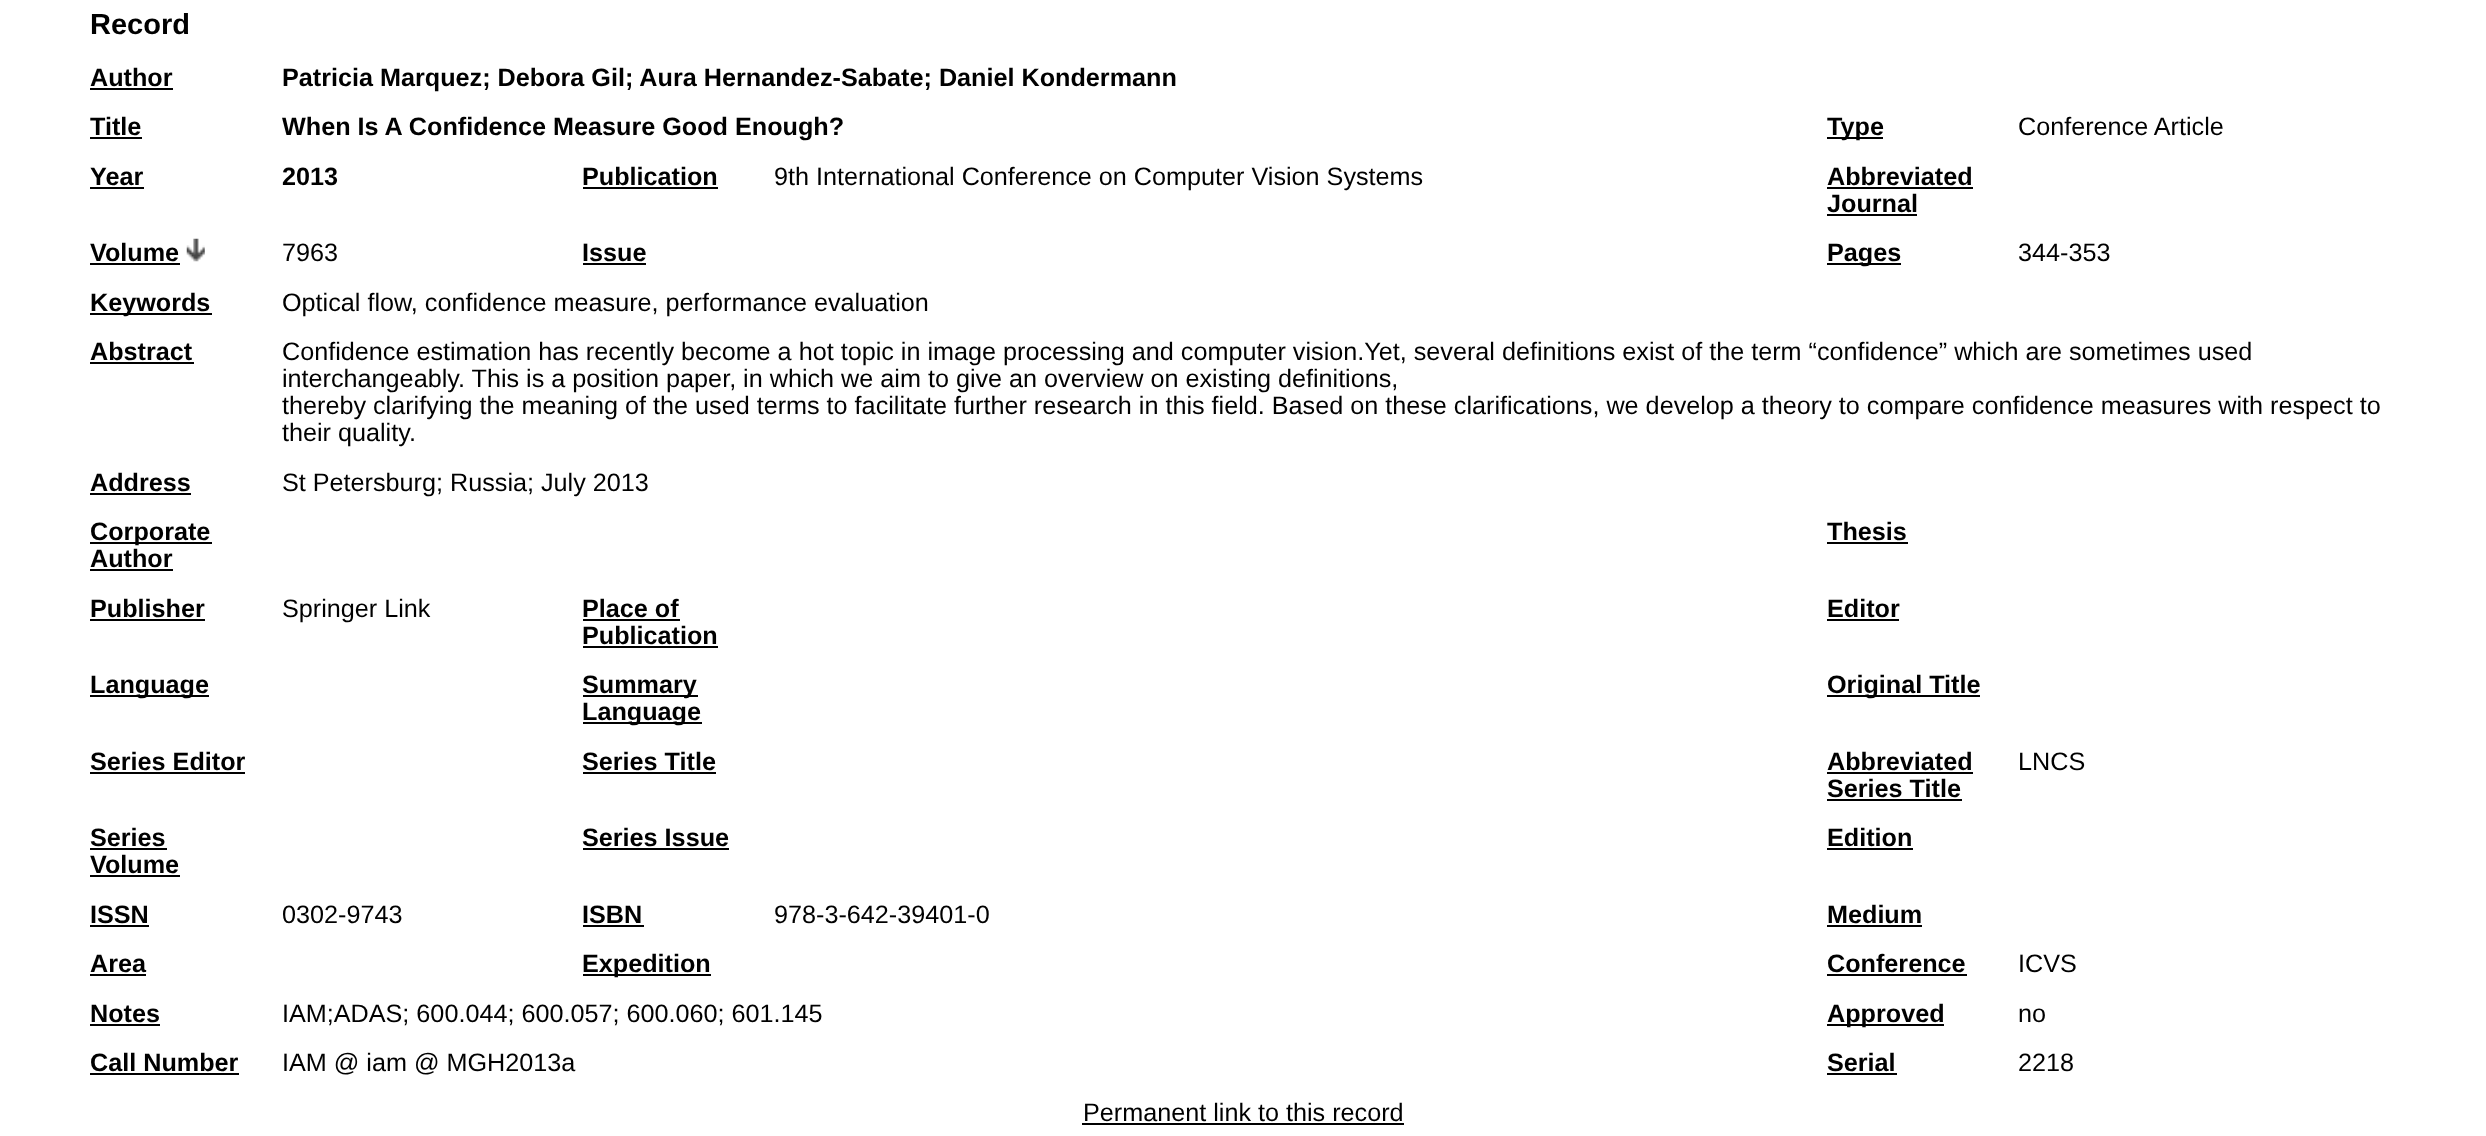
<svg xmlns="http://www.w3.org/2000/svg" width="2486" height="1136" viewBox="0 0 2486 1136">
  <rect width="100%" height="100%" fill="#ffffff"/>
  <text x="90" y="34" font-family="Liberation Sans" font-size="29" font-weight="bold" fill="#000000">Record</text>
  <text x="90" y="86" font-family="Liberation Sans" font-size="25.2" font-weight="bold" fill="#000000">Author</text>
  <rect x="90" y="88" width="83" height="2" fill="#000000"/>
  <text x="282" y="86" font-family="Liberation Sans" font-size="25.2" font-weight="bold" fill="#000000">Patricia Marquez; Debora Gil; Aura Hernandez-Sabate; Daniel Kondermann</text>
  <text x="90" y="135" font-family="Liberation Sans" font-size="25.2" font-weight="bold" fill="#000000">Title</text>
  <rect x="90" y="137" width="52" height="2" fill="#000000"/>
  <text x="282" y="135" font-family="Liberation Sans" font-size="25.2" font-weight="bold" fill="#000000">When Is A Confidence Measure Good Enough?</text>
  <rect x="1827" y="137" width="56" height="2" fill="#000000"/>
  <text x="1827" y="135" font-family="Liberation Sans" font-size="25.2" font-weight="bold" fill="#000000">Type</text>
  <text x="2018" y="135" font-family="Liberation Sans" font-size="25.2" fill="#000000">Conference Article</text>
  <text x="90" y="185" font-family="Liberation Sans" font-size="25.2" font-weight="bold" fill="#000000">Year</text>
  <rect x="90" y="187" width="54" height="2" fill="#000000"/>
  <text x="282" y="185" font-family="Liberation Sans" font-size="25.2" font-weight="bold" fill="#000000">2013</text>
  <text x="582" y="185" font-family="Liberation Sans" font-size="25.2" font-weight="bold" fill="#000000">Publication</text>
  <rect x="583" y="187" width="135" height="2" fill="#000000"/>
  <text x="774" y="185" font-family="Liberation Sans" font-size="25.2" fill="#000000">9th International Conference on Computer Vision Systems</text>
  <text x="1827" y="185" font-family="Liberation Sans" font-size="25.2" font-weight="bold" fill="#000000">Abbreviated</text>
  <rect x="1827" y="187" width="146" height="2" fill="#000000"/>
  <text x="1827" y="212" font-family="Liberation Sans" font-size="25.2" font-weight="bold" fill="#000000">Journal</text>
  <rect x="1827" y="214" width="90" height="2" fill="#000000"/>
  <text x="90" y="261" font-family="Liberation Sans" font-size="25.2" font-weight="bold" fill="#000000">Volume</text>
  <rect x="90" y="263" width="90" height="2" fill="#000000"/>
  <image x="186" y="238" width="19" height="24" href="img1.png"/>
  <text x="282" y="261" font-family="Liberation Sans" font-size="25.2" fill="#000000">7963</text>
  <text x="582" y="261" font-family="Liberation Sans" font-size="25.2" font-weight="bold" fill="#000000">Issue</text>
  <rect x="583" y="263" width="63" height="2" fill="#000000"/>
  <rect x="1827" y="263" width="74" height="2" fill="#000000"/>
  <text x="1827" y="261" font-family="Liberation Sans" font-size="25.2" font-weight="bold" fill="#000000">Pages</text>
  <text x="2018" y="261" font-family="Liberation Sans" font-size="25.2" fill="#000000">344-353</text>
  <rect x="90" y="313" width="122" height="2" fill="#000000"/>
  <text x="90" y="311" font-family="Liberation Sans" font-size="25.2" font-weight="bold" fill="#000000">Keywords</text>
  <text x="282" y="311" font-family="Liberation Sans" font-size="25.2" fill="#000000">Optical flow, confidence measure, performance evaluation</text>
  <text x="90" y="360" font-family="Liberation Sans" font-size="25.2" font-weight="bold" fill="#000000">Abstract</text>
  <rect x="90" y="362" width="104" height="2" fill="#000000"/>
  <text x="282" y="360" font-family="Liberation Sans" font-size="25.2" fill="#000000">Confidence estimation has recently become a hot topic in image processing and computer vision.Yet, several definitions exist of the term “confidence” which are sometimes used</text>
  <text x="282" y="387" font-family="Liberation Sans" font-size="25.2" fill="#000000">interchangeably. This is a position paper, in which we aim to give an overview on existing definitions,</text>
  <text x="282" y="414" font-family="Liberation Sans" font-size="25.2" fill="#000000">thereby clarifying the meaning of the used terms to facilitate further research in this field. Based on these clarifications, we develop a theory to compare confidence measures with respect to</text>
  <text x="282" y="441" font-family="Liberation Sans" font-size="25.2" fill="#000000">their quality.</text>
  <text x="90" y="491" font-family="Liberation Sans" font-size="25.2" font-weight="bold" fill="#000000">Address</text>
  <rect x="90" y="493" width="101" height="2" fill="#000000"/>
  <text x="282" y="491" font-family="Liberation Sans" font-size="25.2" fill="#000000">St Petersburg; Russia; July 2013</text>
  <rect x="90" y="542" width="122" height="2" fill="#000000"/>
  <text x="90" y="540" font-family="Liberation Sans" font-size="25.2" font-weight="bold" fill="#000000">Corporate</text>
  <text x="90" y="567" font-family="Liberation Sans" font-size="25.2" font-weight="bold" fill="#000000">Author</text>
  <rect x="90" y="569" width="83" height="2" fill="#000000"/>
  <text x="1827" y="540" font-family="Liberation Sans" font-size="25.2" font-weight="bold" fill="#000000">Thesis</text>
  <rect x="1827" y="542" width="81" height="2" fill="#000000"/>
  <text x="90" y="617" font-family="Liberation Sans" font-size="25.2" font-weight="bold" fill="#000000">Publisher</text>
  <rect x="90" y="619" width="115" height="2" fill="#000000"/>
  <text x="282" y="617" font-family="Liberation Sans" font-size="25.2" fill="#000000">Springer Link</text>
  <text x="582" y="617" font-family="Liberation Sans" font-size="25.2" font-weight="bold" fill="#000000">Place of</text>
  <rect x="583" y="619" width="97" height="2" fill="#000000"/>
  <text x="582" y="644" font-family="Liberation Sans" font-size="25.2" font-weight="bold" fill="#000000">Publication</text>
  <rect x="583" y="646" width="135" height="2" fill="#000000"/>
  <text x="1827" y="617" font-family="Liberation Sans" font-size="25.2" font-weight="bold" fill="#000000">Editor</text>
  <rect x="1827" y="619" width="72" height="2" fill="#000000"/>
  <rect x="90" y="695" width="119" height="2" fill="#000000"/>
  <text x="90" y="693" font-family="Liberation Sans" font-size="25.2" font-weight="bold" fill="#000000">Language</text>
  <rect x="583" y="695" width="115" height="2" fill="#000000"/>
  <text x="582" y="693" font-family="Liberation Sans" font-size="25.2" font-weight="bold" fill="#000000">Summary</text>
  <rect x="583" y="722" width="119" height="2" fill="#000000"/>
  <text x="582" y="720" font-family="Liberation Sans" font-size="25.2" font-weight="bold" fill="#000000">Language</text>
  <rect x="1827" y="695" width="153" height="2" fill="#000000"/>
  <text x="1827" y="693" font-family="Liberation Sans" font-size="25.2" font-weight="bold" fill="#000000">Original Title</text>
  <text x="90" y="770" font-family="Liberation Sans" font-size="25.2" font-weight="bold" fill="#000000">Series Editor</text>
  <rect x="90" y="772" width="155" height="2" fill="#000000"/>
  <text x="582" y="770" font-family="Liberation Sans" font-size="25.2" font-weight="bold" fill="#000000">Series Title</text>
  <rect x="583" y="772" width="133" height="2" fill="#000000"/>
  <text x="1827" y="770" font-family="Liberation Sans" font-size="25.2" font-weight="bold" fill="#000000">Abbreviated</text>
  <rect x="1827" y="772" width="146" height="2" fill="#000000"/>
  <text x="1827" y="797" font-family="Liberation Sans" font-size="25.2" font-weight="bold" fill="#000000">Series Title</text>
  <rect x="1827" y="799" width="135" height="2" fill="#000000"/>
  <text x="2018" y="770" font-family="Liberation Sans" font-size="25.2" fill="#000000">LNCS</text>
  <text x="90" y="846" font-family="Liberation Sans" font-size="25.2" font-weight="bold" fill="#000000">Series</text>
  <rect x="90" y="848" width="77" height="2" fill="#000000"/>
  <text x="90" y="873" font-family="Liberation Sans" font-size="25.2" font-weight="bold" fill="#000000">Volume</text>
  <rect x="90" y="875" width="90" height="2" fill="#000000"/>
  <text x="582" y="846" font-family="Liberation Sans" font-size="25.2" font-weight="bold" fill="#000000">Series Issue</text>
  <rect x="583" y="848" width="146" height="2" fill="#000000"/>
  <text x="1827" y="846" font-family="Liberation Sans" font-size="25.2" font-weight="bold" fill="#000000">Edition</text>
  <rect x="1827" y="848" width="86" height="2" fill="#000000"/>
  <text x="90" y="923" font-family="Liberation Sans" font-size="25.2" font-weight="bold" fill="#000000">ISSN</text>
  <rect x="90" y="925" width="59" height="2" fill="#000000"/>
  <text x="282" y="923" font-family="Liberation Sans" font-size="25.2" fill="#000000">0302-9743</text>
  <text x="582" y="923" font-family="Liberation Sans" font-size="25.2" font-weight="bold" fill="#000000">ISBN</text>
  <rect x="583" y="925" width="61" height="2" fill="#000000"/>
  <text x="774" y="923" font-family="Liberation Sans" font-size="25.2" fill="#000000">978-3-642-39401-0</text>
  <text x="1827" y="923" font-family="Liberation Sans" font-size="25.2" font-weight="bold" fill="#000000">Medium</text>
  <rect x="1827" y="925" width="95" height="2" fill="#000000"/>
  <text x="90" y="972" font-family="Liberation Sans" font-size="25.2" font-weight="bold" fill="#000000">Area</text>
  <rect x="90" y="974" width="56" height="2" fill="#000000"/>
  <rect x="583" y="974" width="128" height="2" fill="#000000"/>
  <text x="582" y="972" font-family="Liberation Sans" font-size="25.2" font-weight="bold" fill="#000000">Expedition</text>
  <text x="1827" y="972" font-family="Liberation Sans" font-size="25.2" font-weight="bold" fill="#000000">Conference</text>
  <rect x="1827" y="974" width="140" height="2" fill="#000000"/>
  <text x="2018" y="972" font-family="Liberation Sans" font-size="25.2" fill="#000000">ICVS</text>
  <text x="90" y="1022" font-family="Liberation Sans" font-size="25.2" font-weight="bold" fill="#000000">Notes</text>
  <rect x="90" y="1024" width="70" height="2" fill="#000000"/>
  <text x="282" y="1022" font-family="Liberation Sans" font-size="25.2" fill="#000000">IAM;ADAS; 600.044; 600.057; 600.060; 601.145</text>
  <rect x="1827" y="1024" width="117" height="2" fill="#000000"/>
  <text x="1827" y="1022" font-family="Liberation Sans" font-size="25.2" font-weight="bold" fill="#000000">Approved</text>
  <text x="2018" y="1022" font-family="Liberation Sans" font-size="25.2" fill="#000000">no</text>
  <text x="90" y="1071" font-family="Liberation Sans" font-size="25.2" font-weight="bold" fill="#000000">Call Number</text>
  <rect x="90" y="1073" width="149" height="2" fill="#000000"/>
  <text x="282" y="1071" font-family="Liberation Sans" font-size="25.2" fill="#000000">IAM @ iam @ MGH2013a</text>
  <text x="1827" y="1071" font-family="Liberation Sans" font-size="25.2" font-weight="bold" fill="#000000">Serial</text>
  <rect x="1827" y="1073" width="70" height="2" fill="#000000"/>
  <text x="2018" y="1071" font-family="Liberation Sans" font-size="25.2" fill="#000000">2218</text>
  <text x="1083" y="1121" font-family="Liberation Sans" font-size="25.2" fill="#000000">Permanent link to this record</text>
  <rect x="1082" y="1123" width="322" height="2" fill="#000000"/>
</svg>
